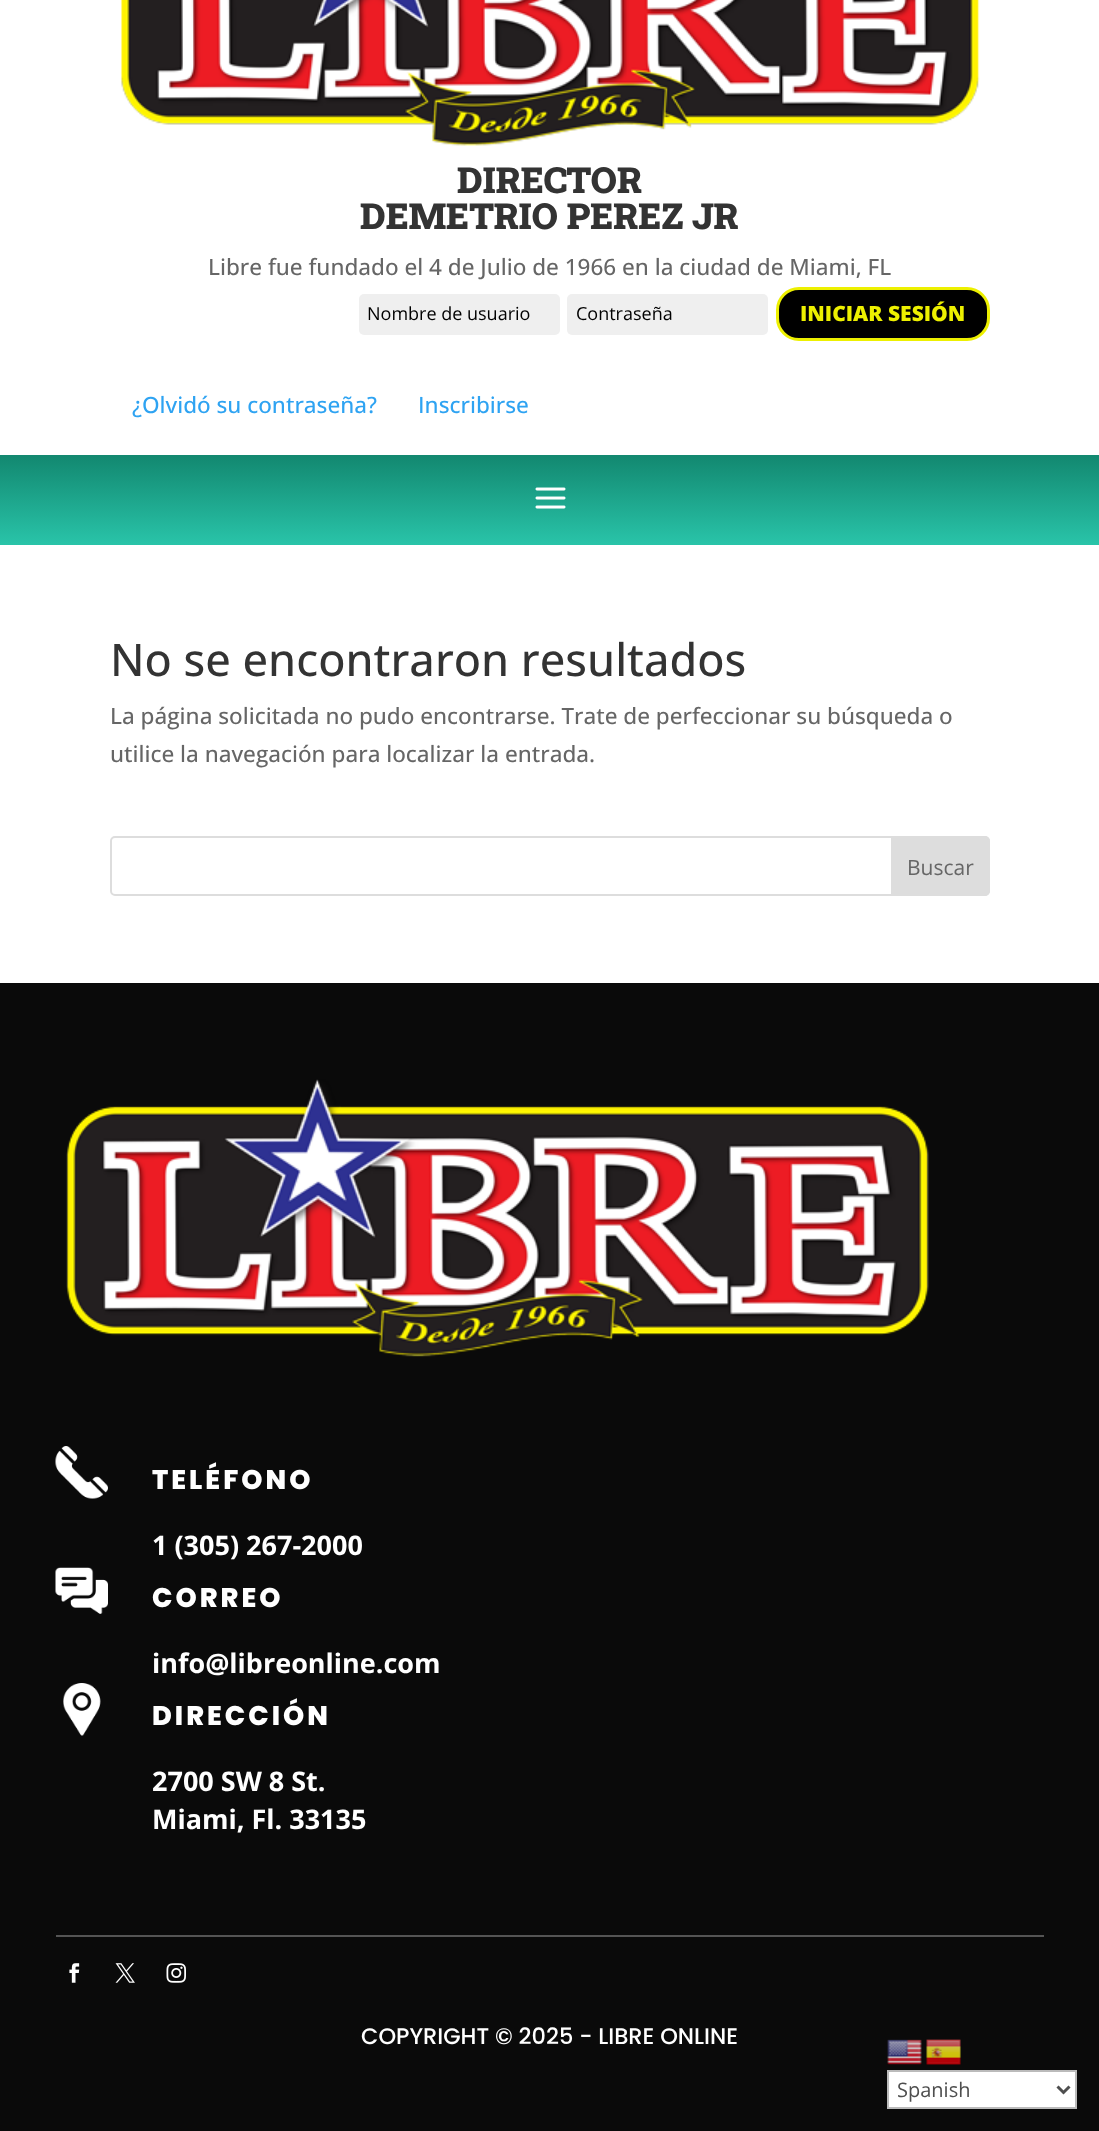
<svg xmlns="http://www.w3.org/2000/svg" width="1099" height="2131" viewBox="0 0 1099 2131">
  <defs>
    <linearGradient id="g1" gradientUnits="userSpaceOnUse" x1="550" y1="454" x2="550" y2="545"><stop offset="0" stop-color="#12876f"/><stop offset="1" stop-color="#29c4a9"/></linearGradient>
  </defs>
  <rect width="100%" height="100%" fill="#ffffff"/>
  <image x="120" y="0" width="860" height="146" href="img1.png"/>
  <text x="457" y="193" font-family="Roboto Slab" font-size="36" font-weight="900" fill="#333333">DIRECTOR</text>
  <text x="360" y="229" font-family="Roboto Slab" font-size="36" font-weight="900" fill="#333333">DEMETRIO PEREZ JR</text>
  <text x="208" y="275" font-family="Open Sans" font-size="22.5" font-weight="500" fill="#666666">Libre fue fundado el 4 de Julio de 1966 en la ciudad de Miami, FL</text>
  <rect x="359" y="294" width="201" height="41" rx="5" fill="#efefef"/>
  <text x="367" y="320" font-family="Open Sans" font-size="18" fill="#000000">Nombre de usuario</text>
  <rect x="567" y="294" width="201" height="41" rx="5" fill="#efefef"/>
  <text x="576" y="320" font-family="Open Sans" font-size="18" fill="#000000">Contraseña</text>
  <rect x="777.5" y="288.5" width="211" height="51" rx="21.5" fill="#000000" stroke="#edf000" stroke-width="3"/>
  <text x="800" y="321" font-family="Open Sans" font-size="21" font-weight="800" fill="#edf000">INICIAR SESIÓN</text>
  <text x="132" y="413" font-family="Open Sans" font-size="22.5" font-weight="500" fill="#2ea3f2">¿Olvidó su contraseña?</text>
  <text x="418" y="413" font-family="Open Sans" font-size="22.5" font-weight="500" fill="#2ea3f2">Inscribirse</text>
  <rect x="0" y="455" width="1099" height="90" fill="url(#g1)"/>
  <image x="535" y="487" width="31" height="22" href="img2.png"/>
  <text x="110" y="676" font-family="Open Sans" font-size="45" font-weight="500" fill="#333333">No se encontraron resultados</text>
  <text x="110" y="724" font-family="Open Sans" font-size="22.5" font-weight="500" fill="#666666">La página solicitada no pudo encontrarse. Trate de perfeccionar su búsqueda o</text>
  <text x="110" y="762" font-family="Open Sans" font-size="22.5" font-weight="500" fill="#666666">utilice la navegación para localizar la entrada.</text>
  <rect x="111" y="837" width="878" height="58" rx="4" fill="none" stroke="#dddddd" stroke-width="2"/>
  <path d="M892 837H985C987 837 989 839 989 841V891C989 893 987 895 985 895H892Z" fill="#dddddd" stroke="#dddddd" stroke-width="2"/>
  <text x="907" y="875" font-family="Open Sans" font-size="21" fill="#666666">Buscar</text>
  <rect x="0" y="983" width="1099" height="1148" fill="#0a0a0a"/>
  <image x="66" y="1079" width="863" height="278" href="img3.png"/>
  <image x="55" y="1446" width="53" height="53" href="img4.png"/>
  <text x="152" y="1489" font-family="Poppins" font-size="27" font-weight="800" letter-spacing="3" fill="#ffffff">TELÉFONO</text>
  <text x="152" y="1555" font-family="Open Sans" font-size="27" font-weight="bold" fill="#ffffff">1 (305) 267-2000</text>
  <image x="55" y="1567" width="53" height="47" href="img5.png"/>
  <text x="152" y="1607" font-family="Poppins" font-size="27" font-weight="800" letter-spacing="3" fill="#ffffff">CORREO</text>
  <text x="152" y="1673" font-family="Open Sans" font-size="27" font-weight="bold" fill="#ffffff">info@libreonline.com</text>
  <image x="63" y="1683" width="38" height="53" href="img6.png"/>
  <text x="152" y="1725" font-family="Poppins" font-size="27" font-weight="800" letter-spacing="3" fill="#ffffff">DIRECCIÓN</text>
  <text x="152" y="1791" font-family="Open Sans" font-size="27" font-weight="bold" fill="#ffffff">2700 SW 8 St.</text>
  <text x="152" y="1829" font-family="Open Sans" font-size="27" font-weight="bold" fill="#ffffff">Miami, Fl. 33135</text>
  <rect x="56" y="1935" width="988" height="2" fill="#545454"/>
  <image x="69" y="1963" width="11" height="20" href="img7.png"/>
  <image x="115" y="1963" width="20" height="20" href="img8.png"/>
  <image x="166" y="1963" width="20" height="20" href="img9.png"/>
  <text x="361" y="2044" font-family="Poppins" font-size="22.5" font-weight="500" fill="#ffffff">COPYRIGHT © 2025 - LIBRE ONLINE</text>
  <image x="887" y="2039" width="35" height="26" href="img10.png"/>
  <image x="926" y="2039" width="35" height="26" href="img11.png"/>
  <rect x="888" y="2071" width="188" height="37" fill="#ffffff" stroke="#bbbbbb" stroke-width="2"/>
  <path d="M1057.5 2086.5L1063.5 2092.5L1069.5 2086.5" fill="none" stroke="#4e4e4e" stroke-width="3"/>
  <text x="897" y="2097" font-family="Open Sans" font-size="20" fill="#4e4e4e">Spanish</text>
</svg>
